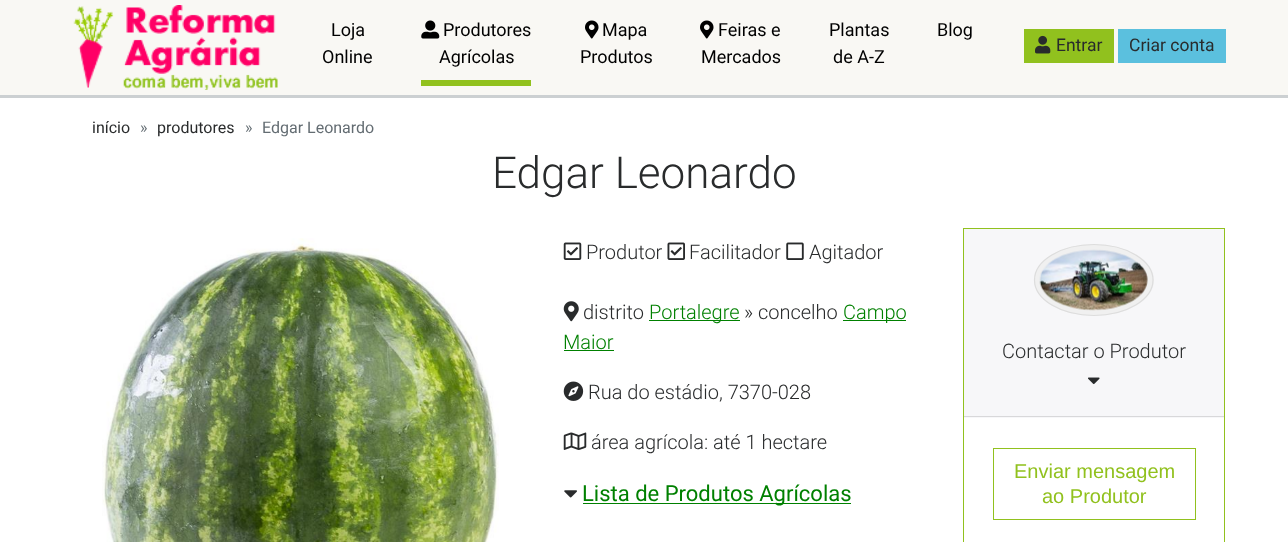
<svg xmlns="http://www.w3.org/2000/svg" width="1288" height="542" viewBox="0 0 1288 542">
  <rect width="100%" height="100%" fill="#ffffff"/>
  <path d="M0 95V98H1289V3V95Z" fill="#ccd0d2"/>
  <rect x="0" y="0" width="1288" height="95" fill="#f9f8f4"/>
  <image x="73" y="5" width="205" height="85" href="img1.png"/>
  <text x="331" y="36" font-family="Roboto" font-size="18" fill="#000000">Loja</text>
  <text x="322" y="63" font-family="Roboto" font-size="18" fill="#000000">Online</text>
  <rect x="421" y="80" width="110" height="6" fill="#91c11e"/>
  <image x="421" y="20" width="19" height="19" href="img2.png"/>
  <text x="443" y="36" font-family="Roboto" font-size="18" fill="#000000">Produtores</text>
  <text x="439" y="63" font-family="Roboto" font-size="18" fill="#000000">Agrícolas</text>
  <image x="585" y="20" width="14" height="19" href="img3.png"/>
  <text x="602" y="36" font-family="Roboto" font-size="18" fill="#000000">Mapa</text>
  <text x="580" y="63" font-family="Roboto" font-size="18" fill="#000000">Produtos</text>
  <image x="700" y="20" width="14" height="19" href="img3.png"/>
  <text x="718" y="36" font-family="Roboto" font-size="18" fill="#000000">Feiras e</text>
  <text x="701" y="63" font-family="Roboto" font-size="18" fill="#000000">Mercados</text>
  <text x="829" y="36" font-family="Roboto" font-size="18" fill="#000000">Plantas</text>
  <text x="833" y="63" font-family="Roboto" font-size="18" fill="#000000">de A-Z</text>
  <text x="937" y="36" font-family="Roboto" font-size="18" fill="#000000">Blog</text>
  <rect x="1024" y="29" width="90" height="34" fill="#91c11e"/>
  <image x="1035" y="35" width="16" height="19" href="img4.png"/>
  <text x="1056" y="51" font-family="Roboto" font-size="17.5" fill="#292b2c">Entrar</text>
  <rect x="1118" y="29" width="108" height="34" fill="#5bc0de"/>
  <text x="1129" y="51" font-family="Roboto" font-size="17.5" fill="#292b2c">Criar conta</text>
  <text x="92" y="133" font-family="Roboto" font-size="16" fill="#292b2c">início</text>
  <text x="140" y="133" font-family="Roboto" font-size="16" fill="#636c72">»</text>
  <text x="157" y="133" font-family="Roboto" font-size="16" fill="#292b2c">produtores</text>
  <text x="245" y="133" font-family="Roboto" font-size="16" fill="#636c72">»</text>
  <text x="262" y="133" font-family="Roboto" font-size="16" fill="#636c72">Edgar Leonardo</text>
  <text x="492" y="188" font-family="Roboto" font-size="44" font-weight="300" fill="#292b2c">Edgar Leonardo</text>
  <image x="102" y="238" width="397" height="304" href="img5.png"/>
  <image x="563" y="242" width="19" height="18" href="img6.png"/>
  <text x="586" y="259" font-family="Roboto" font-size="20" font-weight="300" fill="#292b2c">Produtor</text>
  <image x="667" y="242" width="18" height="18" href="img7.png"/>
  <text x="689" y="259" font-family="Roboto" font-size="20" font-weight="300" fill="#292b2c">Facilitador</text>
  <image x="786" y="242" width="18" height="18" href="img8.png"/>
  <text x="809" y="259" font-family="Roboto" font-size="20" font-weight="300" fill="#292b2c">Agitador</text>
  <image x="563" y="301" width="16" height="21" href="img9.png"/>
  <text x="583" y="319" font-family="Roboto" font-size="20" font-weight="300" fill="#292b2c">distrito</text>
  <rect x="649" y="320" width="91" height="1" fill="#008000"/>
  <text x="649" y="319" font-family="Roboto" font-size="20" font-weight="300" fill="#008000">Portalegre</text>
  <text x="744" y="319" font-family="Roboto" font-size="20" font-weight="300" fill="#292b2c">» concelho</text>
  <rect x="843" y="320" width="63" height="1" fill="#008000"/>
  <text x="843" y="319" font-family="Roboto" font-size="20" font-weight="300" fill="#008000">Campo</text>
  <text x="563" y="349" font-family="Roboto" font-size="20" font-weight="300" fill="#008000">Maior</text>
  <rect x="564" y="350" width="50" height="1" fill="#008000"/>
  <image x="563" y="381" width="21" height="20" href="img10.png"/>
  <text x="588" y="399" font-family="Roboto" font-size="20" font-weight="300" fill="#292b2c">Rua do estádio, 7370-028</text>
  <image x="563" y="432" width="24" height="18" href="img11.png"/>
  <text x="591" y="449" font-family="Roboto" font-size="20" font-weight="300" fill="#292b2c">área agrícola: até 1 hectare</text>
  <image x="564" y="490" width="13" height="8" href="img12.png"/>
  <rect x="583" y="503" width="268" height="1" fill="#008000"/>
  <text x="582" y="501" font-family="Roboto" font-size="22" fill="#008000">Lista de Produtos Agrícolas</text>
  <rect x="963.5" y="228.5" width="261" height="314" fill="none" stroke="#91c11e"/>
  <rect x="964" y="229" width="260" height="189" fill="#f7f7f9"/>
  <rect x="964" y="416" width="260" height="1" fill="#d8d8da"/>
  <ellipse cx="1094" cy="280" rx="60" ry="36" fill="#f0f0f0"/>
  <path d="M1094 244.5C1126.5 244.5 1153 260.5 1153 280C1153 299.5 1126.5 315.5 1094 315.5C1061 315.5 1034.5 299.5 1034.5 280C1034.5 260.5 1061 244.5 1094 244.5Z" fill="none" stroke="#dddddd" stroke-width="1.2"/>
  <image x="1039" y="249" width="109" height="62" href="img13.png"/>
  <text x="1002" y="358" font-family="Roboto" font-size="20" font-weight="300" fill="#292b2c">Contactar o Produtor</text>
  <image x="1088" y="377" width="12" height="8" href="img14.png"/>
  <rect x="993.5" y="448.5" width="202" height="71" fill="none" stroke="#91c11e"/>
  <text x="1014" y="478" font-family="Liberation Sans" font-size="20" fill="#91c11e">Enviar mensagem</text>
  <text x="1042" y="503" font-family="Liberation Sans" font-size="20" fill="#91c11e">ao Produtor</text>
</svg>
